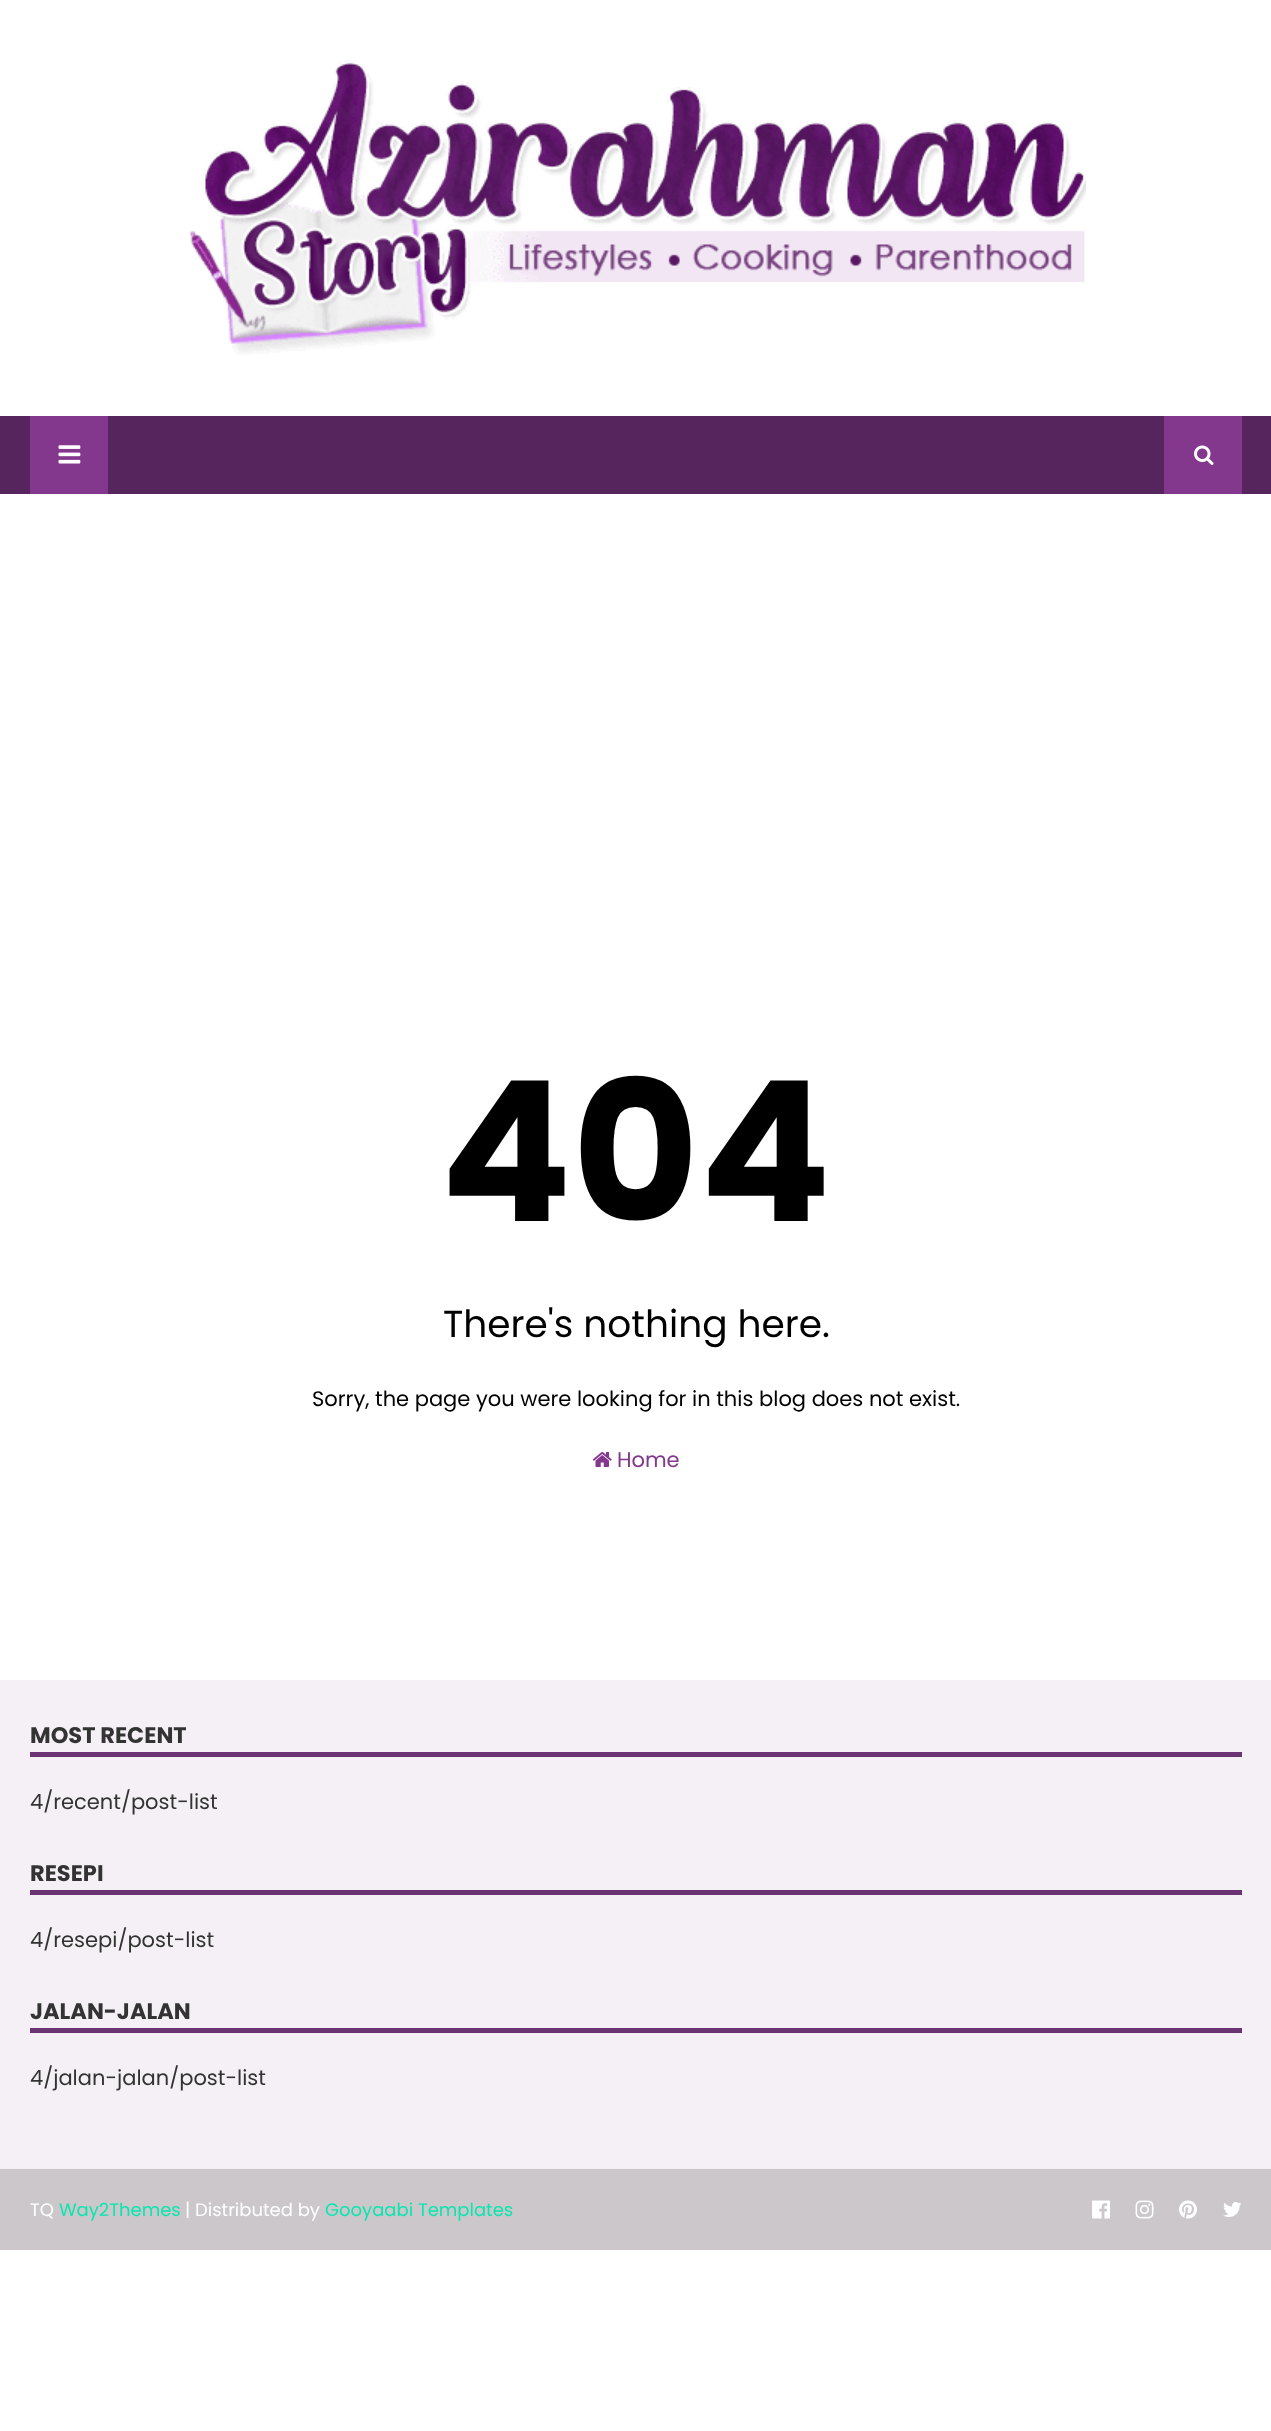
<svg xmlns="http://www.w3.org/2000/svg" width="1271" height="2431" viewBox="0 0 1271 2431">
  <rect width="100%" height="100%" fill="#ffffff"/>
  <image x="189" y="60" width="897" height="295" href="img1.png"/>
  <rect x="0" y="416" width="1271" height="78" fill="#57255e"/>
  <rect x="30" y="416" width="78" height="78" fill="#83378d"/>
  <image x="58" y="445" width="23" height="19" href="img2.png"/>
  <rect x="1164" y="416" width="78" height="78" fill="#83378d"/>
  <image x="1194" y="445" width="20" height="20" href="img3.png"/>
  <text x="440" y="1221" font-family="Poppins" font-size="195" font-weight="bold" fill="#000000">404</text>
  <text x="443" y="1337" font-family="Poppins" font-size="37.5" fill="#000000">There's nothing here.</text>
  <text x="312" y="1406" font-family="Poppins" font-size="21" fill="#000000">Sorry, the page you were looking for in this blog does not exist.</text>
  <image x="592" y="1452" width="20" height="15" href="img4.png"/>
  <text x="617" y="1467" font-family="Poppins" font-size="21" fill="#83378d">Home</text>
  <rect x="0" y="1680" width="1271" height="489" fill="#f4f0f5"/>
  <rect x="30" y="1752" width="1212" height="5" fill="#6c3374"/>
  <text x="30" y="1743" font-family="Poppins" font-size="22.5" font-weight="bold" fill="#333333">MOST RECENT</text>
  <text x="30" y="1809" font-family="Poppins" font-size="21" fill="#333333">4/recent/post-list</text>
  <rect x="30" y="1890" width="1212" height="5" fill="#6c3374"/>
  <text x="30" y="1881" font-family="Poppins" font-size="22.5" font-weight="bold" fill="#333333">RESEPI</text>
  <text x="30" y="1947" font-family="Poppins" font-size="21" fill="#333333">4/resepi/post-list</text>
  <rect x="30" y="2028" width="1212" height="5" fill="#6c3374"/>
  <text x="30" y="2019" font-family="Poppins" font-size="22.5" font-weight="bold" fill="#333333">JALAN-JALAN</text>
  <text x="30" y="2085" font-family="Poppins" font-size="21" fill="#333333">4/jalan-jalan/post-list</text>
  <rect x="0" y="2169" width="1271" height="81" fill="#cbc7cb"/>
  <text x="30" y="2216" font-family="Poppins" font-size="18" fill="#ffffff">TQ</text>
  <text x="59" y="2216" font-family="Poppins" font-size="18" fill="#0be6af">Way2Themes</text>
  <text x="185" y="2216" font-family="Poppins" font-size="18" fill="#ffffff">| Distributed by</text>
  <text x="325" y="2216" font-family="Poppins" font-size="18" fill="#0be6af">Gooyaabi Templates</text>
  <image x="1092" y="2200" width="18" height="19" href="img5.png"/>
  <image x="1135" y="2200" width="19" height="19" href="img6.png"/>
  <image x="1179" y="2200" width="18" height="19" href="img7.png"/>
  <image x="1223" y="2202" width="18" height="15" href="img8.png"/>
</svg>
